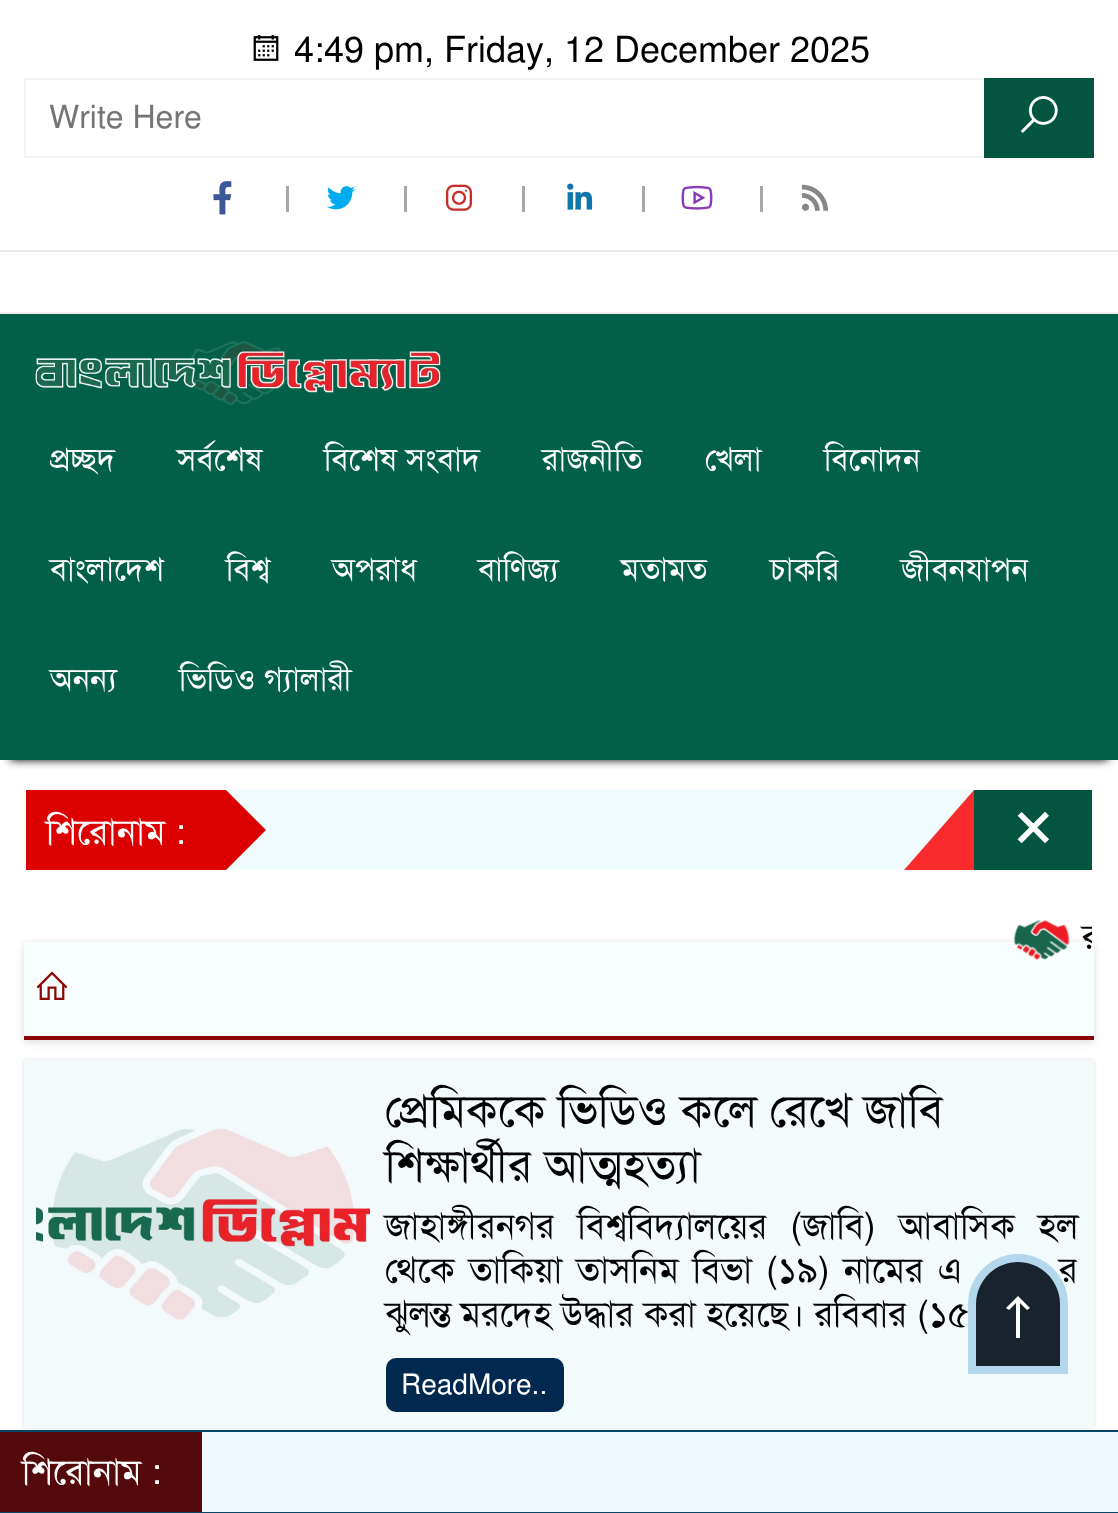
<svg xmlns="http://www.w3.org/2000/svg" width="1118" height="1513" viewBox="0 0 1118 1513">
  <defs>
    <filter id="blur1" x="-50%" y="-200%" width="200%" height="500%"><feGaussianBlur stdDeviation="5"/></filter>
    <clipPath id="clip1"><rect x="26" y="790" width="1066" height="300"/></clipPath>
    <filter id="blur2" x="-50%" y="-200%" width="200%" height="500%"><feGaussianBlur stdDeviation="2"/></filter>
  </defs>
  <rect width="100%" height="100%" fill="#ffffff"/>
  <rect x="0" y="312" width="1118" height="2" fill="#eeeeee"/>
  <image x="253" y="35" width="26" height="26" href="img1.png"/>
  <text x="294" y="62" font-family="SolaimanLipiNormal" font-size="36" fill="#000000">4:49 pm, Friday, 12 December 2025</text>
  <rect x="25" y="79" width="1068" height="78" fill="none" stroke="#f4f4f4" stroke-width="2"/>
  <text x="49" y="128" font-family="SolaimanLipiNormal" font-size="32" fill="#757575">Write Here</text>
  <rect x="984" y="78" width="110" height="80" fill="#03553f"/>
  <image x="1020" y="96" width="38" height="37" href="img2.png"/>
  <image x="213" y="181" width="19" height="34" href="img3.png"/>
  <rect x="286" y="186" width="3" height="26" fill="#a8a6a6"/>
  <image x="327" y="186" width="28" height="24" href="img4.png"/>
  <rect x="404" y="186" width="3" height="26" fill="#a8a6a6"/>
  <image x="445" y="184" width="28" height="27" href="img5.png"/>
  <rect x="522" y="186" width="3" height="26" fill="#a8a6a6"/>
  <image x="567" y="183" width="26" height="27" href="img6.png"/>
  <rect x="642" y="186" width="3" height="26" fill="#a8a6a6"/>
  <image x="681" y="185" width="32" height="25" href="img7.png"/>
  <rect x="760" y="186" width="3" height="26" fill="#a8a6a6"/>
  <image x="801" y="184" width="28" height="27" href="img8.png"/>
  <rect x="0" y="250" width="1118" height="2" fill="#eae8e8"/>
  <rect x="10" y="334" width="1098" height="426" fill="#000000" filter="url(#blur1)"/>
  <rect x="0" y="314" width="1118" height="446" fill="#016047"/>
  <image x="35" y="341" width="406" height="64" href="img9.png"/>
  <text x="50" y="470" font-family="SolaimanLipiNormal" font-size="32" fill="#ffffff">প্রচ্ছদ</text>
  <text x="177" y="470" font-family="SolaimanLipiNormal" font-size="32" fill="#ffffff">সর্বশেষ</text>
  <text x="324" y="470" font-family="SolaimanLipiNormal" font-size="32" fill="#ffffff">বিশেষ সংবাদ</text>
  <text x="542" y="470" font-family="SolaimanLipiNormal" font-size="32" fill="#ffffff">রাজনীতি</text>
  <text x="705" y="470" font-family="SolaimanLipiNormal" font-size="32" fill="#ffffff">খেলা</text>
  <text x="824" y="470" font-family="SolaimanLipiNormal" font-size="32" fill="#ffffff">বিনোদন</text>
  <text x="50" y="580" font-family="SolaimanLipiNormal" font-size="32" fill="#ffffff">বাংলাদেশ</text>
  <text x="226" y="580" font-family="SolaimanLipiNormal" font-size="32" fill="#ffffff">বিশ্ব</text>
  <text x="332" y="580" font-family="SolaimanLipiNormal" font-size="32" fill="#ffffff">অপরাধ</text>
  <text x="478" y="580" font-family="SolaimanLipiNormal" font-size="32" fill="#ffffff">বাণিজ্য</text>
  <text x="621" y="580" font-family="SolaimanLipiNormal" font-size="32" fill="#ffffff">মতামত</text>
  <text x="770" y="580" font-family="SolaimanLipiNormal" font-size="32" fill="#ffffff">চাকরি</text>
  <text x="901" y="580" font-family="SolaimanLipiNormal" font-size="32" fill="#ffffff">জীবনযাপন</text>
  <text x="50" y="690" font-family="SolaimanLipiNormal" font-size="32" fill="#ffffff">অনন্য</text>
  <text x="179" y="690" font-family="SolaimanLipiNormal" font-size="32" fill="#ffffff">ভিডিও গ্যালারী</text>
  <rect x="26" y="790" width="200" height="80" fill="#dd0202"/>
  <text x="46" y="844" font-family="SolaimanLipiNormal" font-size="36" fill="#ffffff">শিরোনাম :</text>
  <rect x="226" y="790" width="748" height="80" fill="#f1fcff"/>
  <path d="M226 870V790L266 830Z" fill="#dd0202"/>
  <rect x="974" y="790" width="118" height="80" fill="#03553f"/>
  <path d="M974 870H904L974 790Z" fill="#fa2b2d"/>
  <text x="1010" y="846" font-family="SolaimanLipiNormal" font-size="80" fill="#ffffff">×</text>
  <rect x="24" y="944" width="1070" height="98" fill="#dddddd" filter="url(#blur1)"/>
  <rect x="24" y="942" width="1070" height="94" fill="#f8fffe"/>
  <image x="1014" y="919" width="56" height="41" href="img10.png"/>
  <g clip-path="url(#clip1)">
    <text x="1082" y="949" font-family="SolaimanLipiNormal" font-size="36" fill="#000000">র</text>
  </g>
  <rect x="24" y="1036" width="1070" height="4" fill="#8c0606"/>
  <image x="36" y="971" width="32" height="29" href="img11.png"/>
  <rect x="24" y="1060" width="1070" height="368" fill="#dddddd" filter="url(#blur2)"/>
  <rect x="24" y="1060" width="1070" height="368" fill="#f3fafc"/>
  <image x="36" y="1128" width="334" height="192" href="img12.png"/>
  <text x="385" y="1126" font-family="SolaimanLipiNormal" font-size="46" fill="#000000">প্রেমিককে ভিডিও কলে রেখে জাবি</text>
  <text x="385" y="1181" font-family="SolaimanLipiNormal" font-size="46" fill="#000000">শিক্ষার্থীর আত্মহত্যা</text>
  <text x="385" y="1238" word-spacing="13" font-family="SolaimanLipiNormal" font-size="36" fill="#000000">জাহাঙ্গীরনগর বিশ্ববিদ্যালয়ের (জাবি) আবাসিক হল</text>
  <text x="385" y="1282" word-spacing="4" font-family="SolaimanLipiNormal" font-size="36" fill="#000000">থেকে তাকিয়া তাসনিম বিভা (১৯) নামের এ</text>
  <text x="1059" y="1282" word-spacing="4" font-family="SolaimanLipiNormal" font-size="36" fill="#000000">র</text>
  <text x="385" y="1326" font-family="SolaimanLipiNormal" font-size="36" fill="#000000">ঝুলন্ত মরদেহ উদ্ধার করা হয়েছে। রবিবার (১৫</text>
  <rect x="386" y="1358" width="178" height="54" rx="10" fill="#01284f"/>
  <text x="401" y="1394" font-family="SolaimanLipiNormal" font-size="28" fill="#ffffff">ReadMore..</text>
  <path d="M1018 1254C1045.5 1254 1068 1276.5 1068 1304V1374H968V1304C968 1276.5 990.5 1254 1018 1254Z" fill="#b3d7ec"/>
  <path d="M1018 1262C1041 1262 1060 1281 1060 1304V1366H976V1304C976 1281 995 1262 1018 1262Z" fill="#19232d"/>
  <path d="M1018 1296L1006 1308L1009 1310L1016 1303V1338H1020V1303L1027 1310L1030 1308Z" fill="#ffffff"/>
  <rect x="202" y="1432" width="916" height="80" fill="#f0f8ff"/>
  <rect x="0" y="1430" width="1118" height="2" fill="#0a4466"/>
  <rect x="0" y="1512" width="1118" height="1" fill="#0a4466"/>
  <rect x="0" y="1432" width="202" height="80" fill="#540a0a"/>
  <text x="22" y="1484" font-family="SolaimanLipiNormal" font-size="36" fill="#ffffff">শিরোনাম :</text>
</svg>
